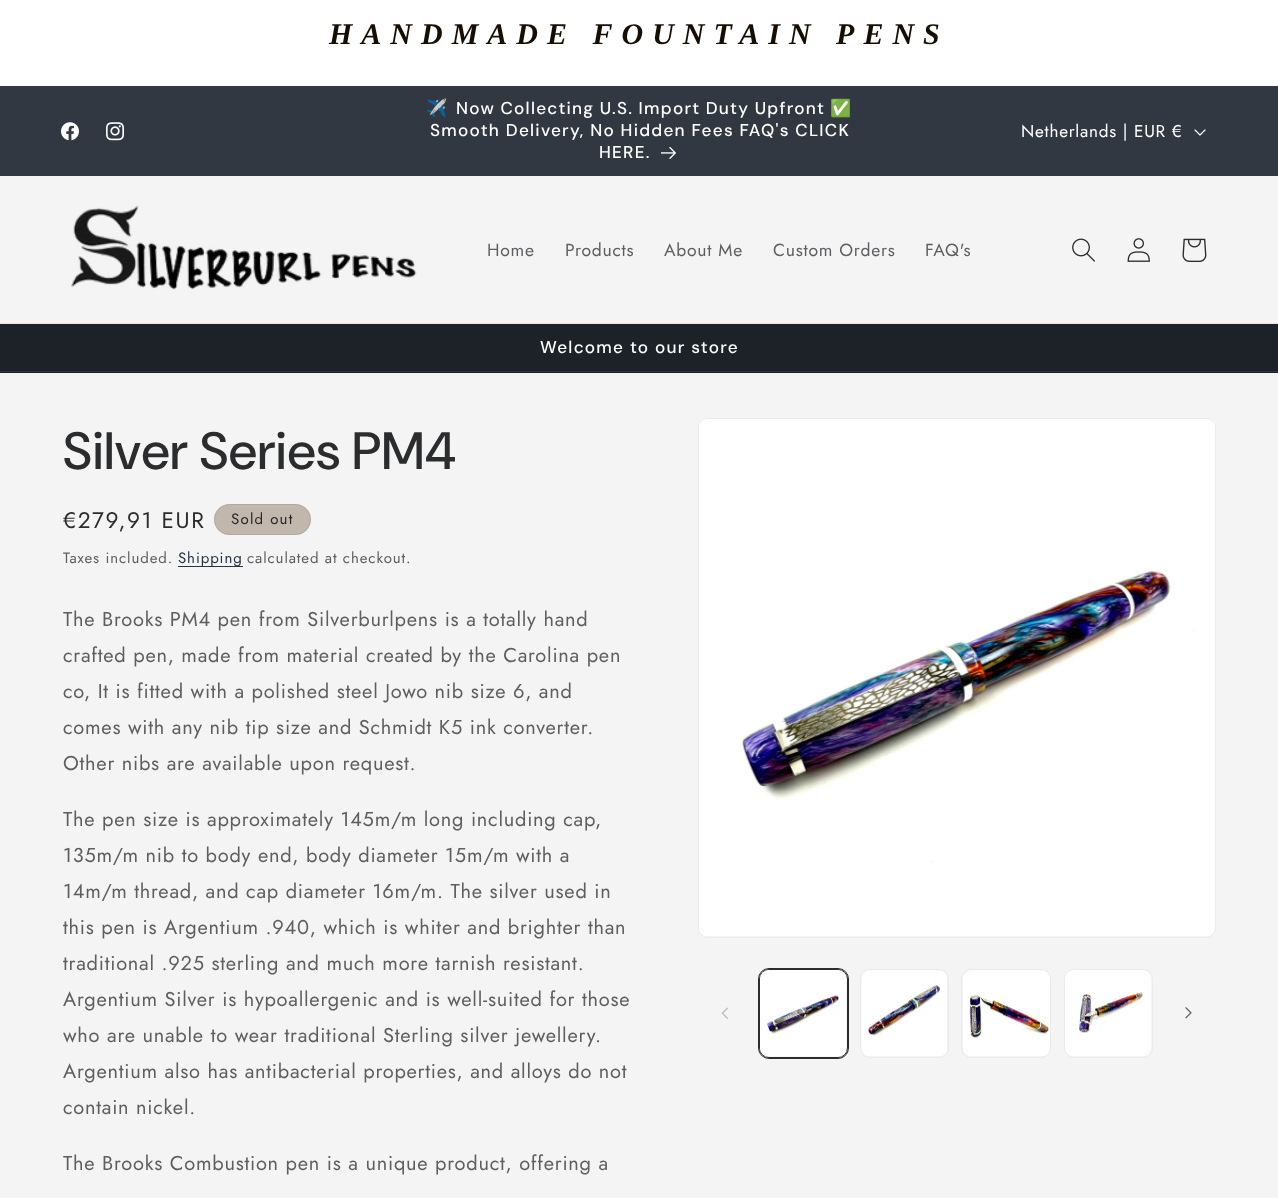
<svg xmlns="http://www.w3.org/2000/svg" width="1278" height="1198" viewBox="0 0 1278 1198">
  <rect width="100%" height="100%" fill="#f4f4f4"/>
  <rect x="0" y="0" width="1278" height="86" fill="#ffffff"/>
  <text x="329" y="44" font-family="Liberation Serif" font-size="30" font-weight="bold" font-style="italic" letter-spacing="9" fill="#160e02">HANDMADE FOUNTAIN PENS</text>
  <rect x="0" y="86" width="1278" height="90" fill="#323841"/>
  <image x="61" y="122" width="18" height="19" href="img1.png"/>
  <image x="106" y="122" width="18" height="19" href="img2.png"/>
  <text x="426" y="114" font-family="Noto Color Emoji" font-size="17.1" letter-spacing="1.25" fill="#ffffff">✈️</text>
  <text x="456" y="114" word-spacing="-0.25" font-family="DM Sans" font-size="17.1" font-weight="500" letter-spacing="1.25" fill="#ffffff">Now Collecting U.S. Import Duty Upfront</text>
  <text x="830" y="114" font-family="Noto Color Emoji" font-size="17.1" letter-spacing="1.25" fill="#ffffff">✅</text>
  <text x="430" y="136" font-family="DM Sans" font-size="17.1" font-weight="500" letter-spacing="1.25" fill="#ffffff">Smooth Delivery, No Hidden Fees FAQ's CLICK</text>
  <text x="599" y="158" font-family="DM Sans" font-size="17.1" font-weight="500" letter-spacing="1.25" fill="#ffffff">HERE.</text>
  <image x="661" y="147" width="15" height="12" href="img3.png"/>
  <text x="1021" y="137" font-family="Jost" font-size="17.1" letter-spacing="0.75" fill="#ffffff">Netherlands | EUR €</text>
  <image x="1194" y="129" width="12" height="7" href="img4.png"/>
  <rect x="0" y="323" width="1278" height="1" fill="#e4e4e4"/>
  <image x="71" y="205" width="346" height="85" href="img5.png"/>
  <text x="487" y="256" font-family="Jost" font-size="17.5" letter-spacing="0.75" fill="#5d5e5f">Home</text>
  <text x="565" y="256" font-family="Jost" font-size="17.5" letter-spacing="0.75" fill="#5d5e5f">Products</text>
  <text x="664" y="256" font-family="Jost" font-size="17.5" letter-spacing="0.75" fill="#5d5e5f">About Me</text>
  <text x="773" y="256" font-family="Jost" font-size="17.5" letter-spacing="0.75" fill="#5d5e5f">Custom Orders</text>
  <text x="925" y="256" font-family="Jost" font-size="17.5" letter-spacing="0.75" fill="#5d5e5f">FAQ's</text>
  <image x="1072" y="238" width="23" height="24" href="img6.png"/>
  <image x="1127" y="238" width="23" height="24" href="img7.png"/>
  <image x="1182" y="238" width="25" height="24" href="img8.png"/>
  <rect x="0" y="324" width="1278" height="49" fill="#1c2228"/>
  <rect x="0" y="371" width="1278" height="1" fill="#2e3439"/>
  <text x="540" y="353" font-family="DM Sans" font-size="17.1" font-weight="500" letter-spacing="1.25" fill="#ffffff">Welcome to our store</text>
  <text x="63" y="469" font-family="'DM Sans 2'" font-size="52.5" font-weight="500" letter-spacing="0.75" fill="#2b2c2d">Silver Series PM4</text>
  <text x="63" y="528" font-family="Jost" font-size="22.5" letter-spacing="1.6" fill="#2b2c2d">€279,91 EUR</text>
  <rect x="214" y="504" width="97" height="31" rx="15.5" fill="#c2b7ac"/>
  <rect x="214.5" y="504.5" width="96" height="30" rx="15" fill="none" stroke="#262626" stroke-opacity="0.1"/>
  <text x="231" y="524" font-family="Jost" font-size="15" letter-spacing="1.25" fill="#262626">Sold out</text>
  <text x="63" y="563" font-family="Jost" font-size="15" letter-spacing="0.9" fill="#5d5e5f">Taxes included.</text>
  <rect x="178" y="566" width="65" height="1" fill="#253347"/>
  <text x="178" y="563" font-family="Jost" font-size="15" letter-spacing="0.9" fill="#243246">Shipping</text>
  <text x="247" y="563" font-family="Jost" font-size="15" letter-spacing="0.9" fill="#5d5e5f">calculated at checkout.</text>
  <text x="63" y="626" font-family="Jost" font-size="20" letter-spacing="0.75" fill="#5d5e5f">The Brooks PM4 pen from Silverburlpens is a totally hand</text>
  <text x="63" y="662" font-family="Jost" font-size="20" letter-spacing="0.75" fill="#5d5e5f">crafted pen, made from material created by the Carolina pen</text>
  <text x="63" y="698" font-family="Jost" font-size="20" letter-spacing="0.75" fill="#5d5e5f">co, It is fitted with a polished steel Jowo nib size 6, and</text>
  <text x="63" y="734" font-family="Jost" font-size="20" letter-spacing="0.75" fill="#5d5e5f">comes with any nib tip size and Schmidt K5 ink converter.</text>
  <text x="63" y="770" font-family="Jost" font-size="20" letter-spacing="0.75" fill="#5d5e5f">Other nibs are available upon request.</text>
  <text x="63" y="826" font-family="Jost" font-size="20" letter-spacing="0.75" fill="#5d5e5f">The pen size is approximately 145m/m long including cap,</text>
  <text x="63" y="862" font-family="Jost" font-size="20" letter-spacing="0.75" fill="#5d5e5f">135m/m nib to body end, body diameter 15m/m with a</text>
  <text x="63" y="898" font-family="Jost" font-size="20" letter-spacing="0.75" fill="#5d5e5f">14m/m thread, and cap diameter 16m/m. The silver used in</text>
  <text x="63" y="934" font-family="Jost" font-size="20" letter-spacing="0.75" fill="#5d5e5f">this pen is Argentium .940, which is whiter and brighter than</text>
  <text x="63" y="970" font-family="Jost" font-size="20" letter-spacing="0.75" fill="#5d5e5f">traditional .925 sterling and much more tarnish resistant.</text>
  <text x="63" y="1006" font-family="Jost" font-size="20" letter-spacing="0.75" fill="#5d5e5f">Argentium Silver is hypoallergenic and is well-suited for those</text>
  <text x="63" y="1042" font-family="Jost" font-size="20" letter-spacing="0.75" fill="#5d5e5f">who are unable to wear traditional Sterling silver jewellery.</text>
  <text x="63" y="1078" font-family="Jost" font-size="20" letter-spacing="0.75" fill="#5d5e5f">Argentium also has antibacterial properties, and alloys do not</text>
  <text x="63" y="1114" font-family="Jost" font-size="20" letter-spacing="0.75" fill="#5d5e5f">contain nickel.</text>
  <text x="63" y="1170" font-family="Jost" font-size="20" letter-spacing="0.75" fill="#5d5e5f">The Brooks Combustion pen is a unique product, offering a</text>
  <rect x="698.5" y="418.5" width="517" height="519" rx="9.5" fill="none" stroke="#eaeaea"/>
  <image x="699" y="419" width="516" height="517" href="img9.png"/>
  <image x="721" y="1007" width="7" height="12" href="img10.png"/>
  <rect x="758.5" y="968.5" width="90" height="90" rx="10.5" fill="none" stroke="#2b2c2d"/>
  <rect x="759.5" y="969.5" width="88" height="88" rx="9.5" fill="none" stroke="#2b2c2d"/>
  <image x="760" y="970" width="86" height="87" href="img11.png"/>
  <rect x="860.5" y="969.5" width="88" height="88" rx="9.5" fill="none" stroke="#eaeaea"/>
  <image x="861" y="970" width="86" height="86" href="img12.png"/>
  <rect x="961.5" y="969.5" width="89" height="88" rx="9.5" fill="none" stroke="#eaeaea"/>
  <image x="963" y="970" width="87" height="86" href="img13.png"/>
  <rect x="1064.5" y="969.5" width="88" height="88" rx="9.5" fill="none" stroke="#eaeaea"/>
  <image x="1065" y="970" width="86" height="86" href="img14.png"/>
  <image x="1185" y="1007" width="7" height="12" href="img15.png"/>
</svg>
